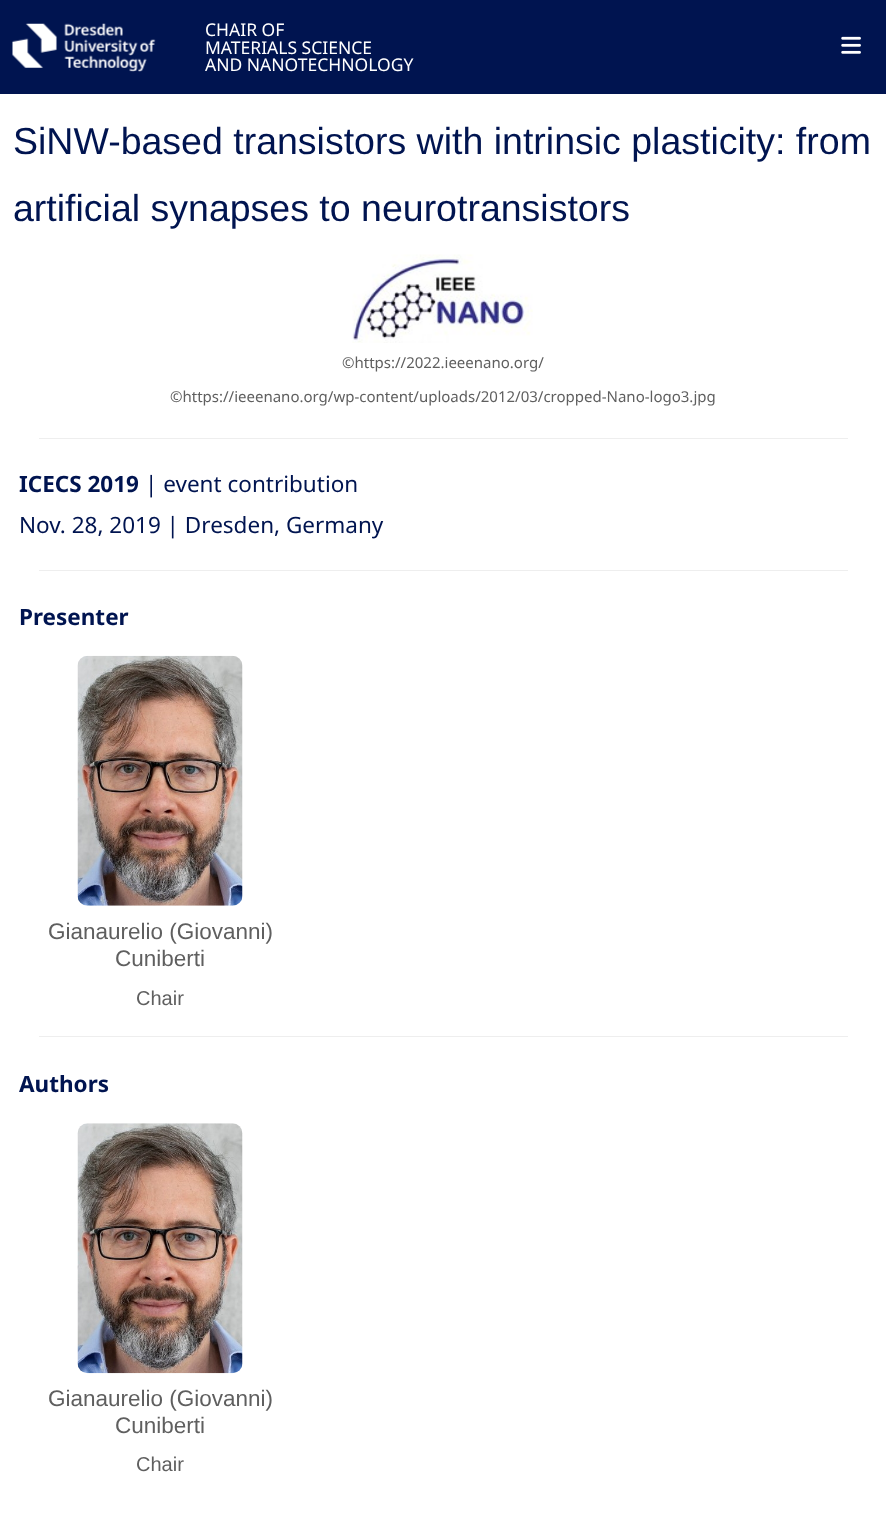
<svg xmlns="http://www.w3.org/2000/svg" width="886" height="1520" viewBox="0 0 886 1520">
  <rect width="100%" height="100%" fill="#ffffff"/>
  <rect x="0" y="0" width="886" height="94" fill="#001450"/>
  <image x="12" y="23" width="144" height="49" href="img1.png"/>
  <text x="205" y="36" font-family="Noto Sans" font-size="17.5" fill="#ffffff">CHAIR OF</text>
  <text x="205" y="54" font-family="Noto Sans" font-size="17.5" fill="#ffffff">MATERIALS SCIENCE</text>
  <text x="205" y="71" font-family="Noto Sans" font-size="17.5" fill="#ffffff">AND NANOTECHNOLOGY</text>
  <image x="841" y="36" width="20" height="18" href="img2.png"/>
  <text x="13" y="154" font-family="Liberation Sans" font-size="37.5" fill="#001450">SiNW-based transistors with intrinsic plasticity: from</text>
  <text x="13" y="221" font-family="Liberation Sans" font-size="37.5" fill="#001450">artificial synapses to neurotransistors</text>
  <image x="352" y="254" width="181" height="89" href="img3.png"/>
  <text x="342" y="368" font-family="Noto Sans" font-size="15" fill="#5f5f5f">©https://2022.ieeenano.org/</text>
  <text x="170" y="402" font-family="Noto Sans" font-size="15" fill="#5f5f5f">©https://ieeenano.org/wp-content/uploads/2012/03/cropped-Nano-logo3.jpg</text>
  <rect x="39" y="438" width="809" height="1" fill="#eeeeee"/>
  <text x="19" y="492" font-family="Noto Sans" font-size="22.5" font-weight="bold" fill="#001450">ICECS 2019</text>
  <text x="145" y="492" font-family="Noto Sans" font-size="22.5" fill="#001450">| event contribution</text>
  <text x="19" y="533" font-family="Noto Sans" font-size="22.5" fill="#001450">Nov. 28, 2019 | Dresden, Germany</text>
  <rect x="39" y="570" width="809" height="1" fill="#eeeeee"/>
  <text x="19" y="625" font-family="Noto Sans" font-size="22.5" font-weight="bold" fill="#001450">Presenter</text>
  <image x="77" y="655" width="166" height="251" href="img4.png"/>
  <text x="48" y="939" font-family="Liberation Sans" font-size="22.5" fill="#5f5f5f">Gianaurelio (Giovanni)</text>
  <text x="115" y="966" font-family="Liberation Sans" font-size="22.5" fill="#5f5f5f">Cuniberti</text>
  <text x="136" y="1005" font-family="Liberation Sans" font-size="20" fill="#5f5f5f">Chair</text>
  <rect x="39" y="1036" width="809" height="1" fill="#eeeeee"/>
  <text x="19" y="1092" font-family="Noto Sans" font-size="22.5" font-weight="bold" fill="#001450">Authors</text>
  <image x="77" y="1123" width="166" height="251" href="img5.png"/>
  <text x="48" y="1406" font-family="Liberation Sans" font-size="22.5" fill="#5f5f5f">Gianaurelio (Giovanni)</text>
  <text x="115" y="1433" font-family="Liberation Sans" font-size="22.5" fill="#5f5f5f">Cuniberti</text>
  <text x="136" y="1471" font-family="Liberation Sans" font-size="20" fill="#5f5f5f">Chair</text>
</svg>
